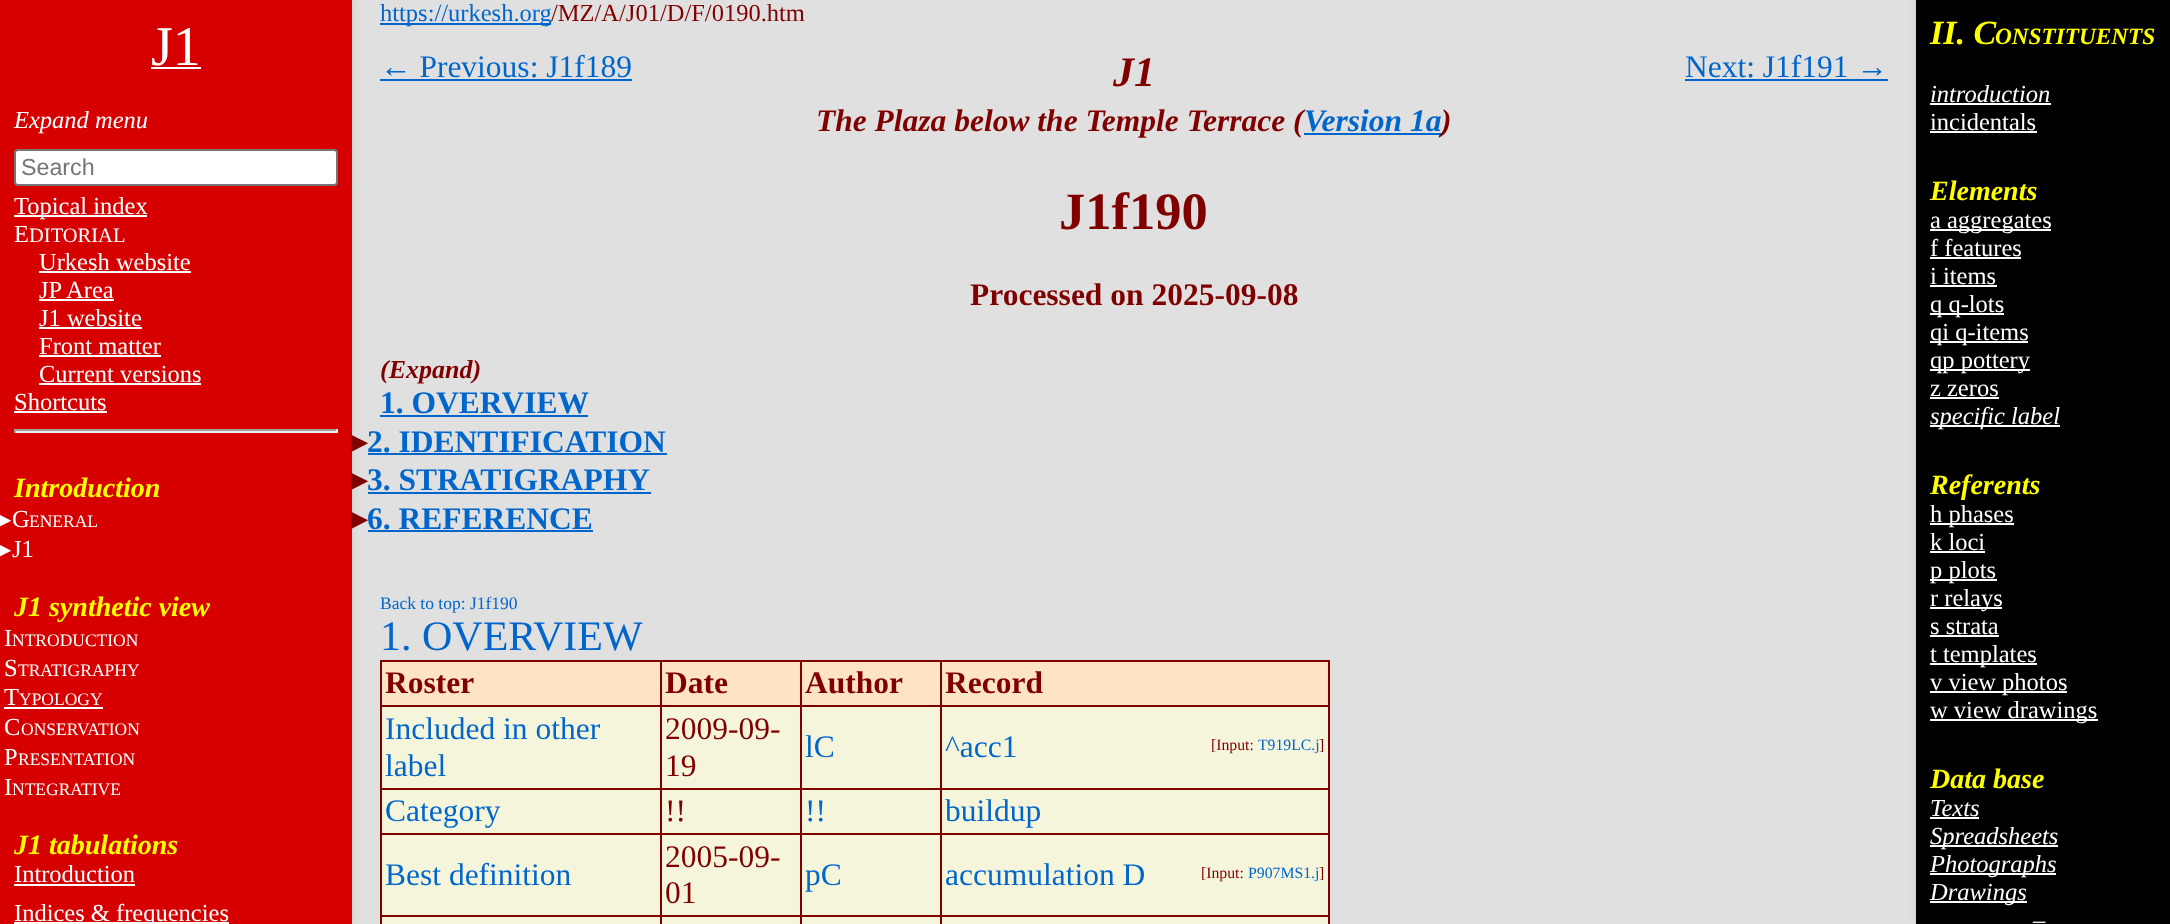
<svg xmlns="http://www.w3.org/2000/svg" width="2170" height="924" viewBox="0 0 2170 924">
  <defs>
    <filter id="blur1" x="-50%" y="-200%" width="200%" height="500%"><feGaussianBlur stdDeviation="3.5"/></filter>
  </defs>
  <rect width="100%" height="100%" fill="#e0e0e0"/>
  <rect x="0" y="0" width="352" height="924" fill="#000000" fill-opacity="0.1" filter="url(#blur1)"/>
  <rect x="0" y="0" width="352" height="924" fill="#d60000"/>
  <text x="151" y="65" font-family="Liberation Serif" font-size="56" fill="#ffffff">J1</text>
  <rect x="151" y="67" width="50" height="2" fill="#ffffff"/>
  <text x="14" y="128" font-family="Liberation Serif" font-size="24.5" font-style="italic" fill="#ffffff">Expand menu</text>
  <rect x="15" y="150" width="322" height="35" rx="3" fill="#ffffff" stroke="#767676" stroke-width="2"/>
  <text x="21" y="175" font-family="Liberation Sans" font-size="23.25" fill="#757575">Search</text>
  <rect x="14" y="215" width="133" height="2" fill="#ffffff"/>
  <text x="14" y="214" font-family="Liberation Serif" font-size="24.5" fill="#ffffff">Topical index</text>
  <text x="14" y="242" font-family="Liberation Serif" font-size="24.5" fill="#ffffff">E</text>
  <text x="29" y="242" font-family="Liberation Serif" font-size="20.5" fill="#ffffff">DITORIAL</text>
  <text x="39" y="270" font-family="Liberation Serif" font-size="24.5" fill="#ffffff">Urkesh website</text>
  <rect x="39" y="271" width="152" height="2" fill="#ffffff"/>
  <text x="39" y="298" font-family="Liberation Serif" font-size="24.5" fill="#ffffff">JP Area</text>
  <rect x="39" y="299" width="75" height="2" fill="#ffffff"/>
  <text x="39" y="326" font-family="Liberation Serif" font-size="24.5" fill="#ffffff">J1 website</text>
  <rect x="39" y="327" width="103" height="2" fill="#ffffff"/>
  <text x="39" y="354" font-family="Liberation Serif" font-size="24.5" fill="#ffffff">Front matter</text>
  <rect x="39" y="355" width="122" height="2" fill="#ffffff"/>
  <text x="39" y="382" font-family="Liberation Serif" font-size="24.5" fill="#ffffff">Current versions</text>
  <rect x="39" y="383" width="162" height="2" fill="#ffffff"/>
  <text x="14" y="410" font-family="Liberation Serif" font-size="24.5" fill="#ffffff">Shortcuts</text>
  <rect x="14" y="411" width="93" height="2" fill="#ffffff"/>
  <rect x="14" y="429" width="324" height="2" fill="#9f9f9f"/>
  <rect x="336" y="429" width="2" height="4" fill="#eeeeee"/>
  <rect x="14" y="431" width="324" height="2" fill="#eeeeee"/>
  <rect x="14" y="429" width="2" height="4" fill="#9f9f9f"/>
  <text x="14" y="497" font-family="Liberation Serif" font-size="28" font-weight="bold" font-style="italic" fill="#ffff00">Introduction</text>
  <text x="-1" y="527" font-family="DejaVu Sans" font-size="24.5" fill="#ffffff">▸</text>
  <text x="12" y="527" font-family="Liberation Serif" font-size="24.5" fill="#ffffff">G</text>
  <text x="29" y="527" font-family="Liberation Serif" font-size="17.5" fill="#ffffff">ENERAL</text>
  <text x="-1" y="557" font-family="DejaVu Sans" font-size="24.5" fill="#ffffff">▸</text>
  <text x="12" y="557" font-family="Liberation Serif" font-size="24.5" fill="#ffffff">J1</text>
  <text x="14" y="616" font-family="Liberation Serif" font-size="28" font-weight="bold" font-style="italic" fill="#ffff00">J1 synthetic view</text>
  <text x="4" y="646" font-family="Liberation Serif" font-size="24.5" fill="#ffffff">I</text>
  <text x="12" y="646" font-family="Liberation Serif" font-size="17.5" fill="#ffffff">NTRODUCTION</text>
  <text x="4" y="676" font-family="Liberation Serif" font-size="24.5" fill="#ffffff">S</text>
  <text x="18" y="676" font-family="Liberation Serif" font-size="17.5" fill="#ffffff">TRATIGRAPHY</text>
  <text x="4" y="705" font-family="Liberation Serif" font-size="24.5" fill="#ffffff">T</text>
  <text x="19" y="705" font-family="Liberation Serif" font-size="17.5" fill="#ffffff">YPOLOGY</text>
  <rect x="4" y="707" width="99" height="2" fill="#ffffff"/>
  <text x="4" y="735" font-family="Liberation Serif" font-size="24.5" fill="#ffffff">C</text>
  <text x="21" y="735" font-family="Liberation Serif" font-size="17.5" fill="#ffffff">ONSERVATION</text>
  <text x="4" y="765" font-family="Liberation Serif" font-size="24.5" fill="#ffffff">P</text>
  <text x="18" y="765" font-family="Liberation Serif" font-size="17.5" fill="#ffffff">RESENTATION</text>
  <text x="4" y="795" font-family="Liberation Serif" font-size="24.5" fill="#ffffff">I</text>
  <text x="12" y="795" font-family="Liberation Serif" font-size="17.5" fill="#ffffff">NTEGRATIVE</text>
  <text x="14" y="854" font-family="Liberation Serif" font-size="28" font-weight="bold" font-style="italic" fill="#ffff00">J1 tabulations</text>
  <text x="14" y="882" font-family="Liberation Serif" font-size="24.5" fill="#ffffff">Introduction</text>
  <rect x="14" y="884" width="121" height="2" fill="#ffffff"/>
  <rect x="14" y="922" width="215" height="2" fill="#ffffff"/>
  <text x="14" y="921" font-family="Liberation Serif" font-size="24.5" fill="#ffffff">Indices &amp; frequencies</text>
  <rect x="380" y="23" width="171" height="2" fill="#0066cc"/>
  <text x="380" y="21" font-family="Liberation Serif" font-size="24.5" fill="#0066cc">https://urkesh.org</text>
  <text x="551" y="21" font-family="Liberation Serif" font-size="24.5" fill="#800000">/MZ/A/J01/D/F/0190.htm</text>
  <text x="380" y="77" font-family="Liberation Serif" font-size="31.5" fill="#0066cc">← Previous: J1f189</text>
  <rect x="380" y="79" width="252" height="2" fill="#0066cc"/>
  <text x="1685" y="77" font-family="Liberation Serif" font-size="31.5" fill="#0066cc">Next: J1f191 →</text>
  <rect x="1685" y="79" width="203" height="2" fill="#0066cc"/>
  <text x="1113" y="86" font-family="Liberation Serif" font-size="42" font-weight="bold" font-style="italic" fill="#800000">J1</text>
  <text x="816" y="131" font-family="Liberation Serif" font-size="31.5" font-weight="bold" font-style="italic" fill="#800000">The Plaza below the Temple Terrace (</text>
  <rect x="1304" y="133" width="138" height="2" fill="#0066cc"/>
  <text x="1304" y="131" font-family="Liberation Serif" font-size="31.5" font-weight="bold" font-style="italic" fill="#0066cc">Version 1a</text>
  <text x="1441" y="131" font-family="Liberation Serif" font-size="31.5" font-weight="bold" font-style="italic" fill="#800000">)</text>
  <text x="1059" y="229" font-family="Liberation Serif" font-size="52.5" font-weight="bold" fill="#800000">J1f190</text>
  <text x="970" y="305" font-family="Liberation Serif" font-size="31.5" font-weight="bold" fill="#800000">Processed on 2025-09-08</text>
  <text x="380" y="378" font-family="Liberation Serif" font-size="26" font-weight="bold" font-style="italic" fill="#800000">(Expand)</text>
  <text x="380" y="413" font-family="Liberation Serif" font-size="31.5" font-weight="bold" fill="#0066cc">1. OVERVIEW</text>
  <rect x="380" y="415" width="208" height="2" fill="#0066cc"/>
  <text x="351" y="452" font-family="DejaVu Sans" font-size="31.5" font-weight="bold" fill="#800000">▸</text>
  <text x="367" y="452" font-family="Liberation Serif" font-size="31.5" font-weight="bold" fill="#0066cc">2. IDENTIFICATION</text>
  <rect x="368" y="453" width="299" height="2" fill="#0066cc"/>
  <text x="351" y="490" font-family="DejaVu Sans" font-size="31.5" font-weight="bold" fill="#800000">▸</text>
  <text x="367" y="490" font-family="Liberation Serif" font-size="31.5" font-weight="bold" fill="#0066cc">3. STRATIGRAPHY</text>
  <rect x="368" y="492" width="283" height="2" fill="#0066cc"/>
  <text x="351" y="529" font-family="DejaVu Sans" font-size="31.5" font-weight="bold" fill="#800000">▸</text>
  <text x="367" y="529" font-family="Liberation Serif" font-size="31.5" font-weight="bold" fill="#0066cc">6. REFERENCE</text>
  <rect x="368" y="530" width="225" height="2" fill="#0066cc"/>
  <text x="380" y="609" font-family="Liberation Serif" font-size="17.5" fill="#0066cc">Back to top: J1f190</text>
  <text x="380" y="650" font-family="Liberation Serif" font-size="42" fill="#0066cc">1. OVERVIEW</text>
  <rect x="382" y="707" width="946" height="217" fill="#f5f5dc"/>
  <rect x="380" y="660" width="950" height="2" fill="#800000"/>
  <rect x="1328" y="660" width="2" height="264" fill="#800000"/>
  <rect x="380" y="660" width="2" height="264" fill="#800000"/>
  <rect x="382" y="662" width="946" height="43" fill="#ffe4c4"/>
  <text x="385" y="693" font-family="Liberation Serif" font-size="31.5" font-weight="bold" fill="#800000">Roster</text>
  <text x="665" y="693" font-family="Liberation Serif" font-size="31.5" font-weight="bold" fill="#800000">Date</text>
  <text x="805" y="693" font-family="Liberation Serif" font-size="31.5" font-weight="bold" fill="#800000">Author</text>
  <text x="945" y="693" font-family="Liberation Serif" font-size="31.5" font-weight="bold" fill="#800000">Record</text>
  <rect x="380" y="915" width="950" height="2" fill="#800000"/>
  <rect x="380" y="705" width="950" height="2" fill="#800000"/>
  <rect x="380" y="788" width="950" height="2" fill="#800000"/>
  <rect x="380" y="833" width="950" height="2" fill="#800000"/>
  <rect x="660" y="660" width="2" height="264" fill="#800000"/>
  <rect x="800" y="660" width="2" height="264" fill="#800000"/>
  <rect x="940" y="660" width="2" height="264" fill="#800000"/>
  <text x="385" y="739" font-family="Liberation Serif" font-size="31.5" fill="#0066cc">Included in other</text>
  <text x="385" y="776" font-family="Liberation Serif" font-size="31.5" fill="#0066cc">label</text>
  <text x="665" y="739" font-family="Liberation Serif" font-size="31.5" fill="#800000">2009-09-</text>
  <text x="665" y="776" font-family="Liberation Serif" font-size="31.5" fill="#800000">19</text>
  <text x="805" y="757" font-family="Liberation Serif" font-size="31.5" fill="#0066cc">lC</text>
  <text x="945" y="757" font-family="Liberation Serif" font-size="31.5" fill="#0066cc">^acc1</text>
  <text x="1211" y="750" font-family="Liberation Serif" font-size="15.75" fill="#800000">[Input:</text>
  <text x="1258" y="750" font-family="Liberation Serif" font-size="15.75" fill="#0066cc">T919LC.j</text>
  <text x="1319" y="750" font-family="Liberation Serif" font-size="15.75" fill="#800000">]</text>
  <text x="385" y="821" font-family="Liberation Serif" font-size="31.5" fill="#0066cc">Category</text>
  <text x="665" y="821" font-family="Liberation Serif" font-size="31.5" fill="#800000">!!</text>
  <text x="805" y="821" font-family="Liberation Serif" font-size="31.5" fill="#0066cc">!!</text>
  <text x="945" y="821" font-family="Liberation Serif" font-size="31.5" fill="#0066cc">buildup</text>
  <text x="385" y="885" font-family="Liberation Serif" font-size="31.5" fill="#0066cc">Best definition</text>
  <text x="665" y="867" font-family="Liberation Serif" font-size="31.5" fill="#800000">2005-09-</text>
  <text x="665" y="903" font-family="Liberation Serif" font-size="31.5" fill="#800000">01</text>
  <text x="805" y="885" font-family="Liberation Serif" font-size="31.5" fill="#0066cc">pC</text>
  <text x="945" y="885" font-family="Liberation Serif" font-size="31.5" fill="#0066cc">accumulation D</text>
  <text x="1201" y="878" font-family="Liberation Serif" font-size="15.75" fill="#800000">[Input:</text>
  <text x="1248" y="878" font-family="Liberation Serif" font-size="15.75" fill="#0066cc">P907MS1.j</text>
  <text x="1319" y="878" font-family="Liberation Serif" font-size="15.75" fill="#800000">]</text>
  <rect x="1916" y="0" width="254" height="924" fill="#000000" fill-opacity="0.1" filter="url(#blur1)"/>
  <rect x="1916" y="0" width="254" height="924" fill="#000000"/>
  <text x="1930" y="44" font-family="Liberation Serif" font-size="34" font-weight="bold" font-style="italic" fill="#ffff00">II. C</text>
  <text x="1995" y="44" font-family="Liberation Serif" font-size="23.25" font-weight="bold" font-style="italic" fill="#ffff00">ONSTITUENTS</text>
  <text x="1930" y="102" font-family="Liberation Serif" font-size="24.5" font-style="italic" fill="#ffffff">introduction</text>
  <rect x="1930" y="103" width="121" height="2" fill="#ffffff"/>
  <text x="1930" y="130" font-family="Liberation Serif" font-size="24.5" fill="#ffffff">incidentals</text>
  <rect x="1930" y="131" width="107" height="2" fill="#ffffff"/>
  <text x="1930" y="200" font-family="Liberation Serif" font-size="28" font-weight="bold" font-style="italic" fill="#ffff00">Elements</text>
  <rect x="1930" y="229" width="121" height="2" fill="#ffffff"/>
  <text x="1930" y="228" font-family="Liberation Serif" font-size="24.5" fill="#ffffff">a aggregates</text>
  <text x="1930" y="256" font-family="Liberation Serif" font-size="24.5" fill="#ffffff">f features</text>
  <rect x="1930" y="257" width="91" height="2" fill="#ffffff"/>
  <text x="1930" y="284" font-family="Liberation Serif" font-size="24.5" fill="#ffffff">i items</text>
  <rect x="1930" y="285" width="67" height="2" fill="#ffffff"/>
  <rect x="1930" y="313" width="74" height="2" fill="#ffffff"/>
  <text x="1930" y="312" font-family="Liberation Serif" font-size="24.5" fill="#ffffff">q q-lots</text>
  <rect x="1930" y="341" width="98" height="2" fill="#ffffff"/>
  <text x="1930" y="340" font-family="Liberation Serif" font-size="24.5" fill="#ffffff">qi q-items</text>
  <rect x="1930" y="369" width="100" height="2" fill="#ffffff"/>
  <text x="1930" y="368" font-family="Liberation Serif" font-size="24.5" fill="#ffffff">qp pottery</text>
  <text x="1930" y="396" font-family="Liberation Serif" font-size="24.5" fill="#ffffff">z zeros</text>
  <rect x="1930" y="397" width="69" height="2" fill="#ffffff"/>
  <rect x="1930" y="425" width="130" height="2" fill="#ffffff"/>
  <text x="1930" y="424" font-family="Liberation Serif" font-size="24.5" font-style="italic" fill="#ffffff">specific label</text>
  <text x="1930" y="494" font-family="Liberation Serif" font-size="28" font-weight="bold" font-style="italic" fill="#ffff00">Referents</text>
  <rect x="1930" y="523" width="84" height="2" fill="#ffffff"/>
  <text x="1930" y="522" font-family="Liberation Serif" font-size="24.5" fill="#ffffff">h phases</text>
  <text x="1930" y="550" font-family="Liberation Serif" font-size="24.5" fill="#ffffff">k loci</text>
  <rect x="1930" y="551" width="55" height="2" fill="#ffffff"/>
  <rect x="1930" y="579" width="67" height="2" fill="#ffffff"/>
  <text x="1930" y="578" font-family="Liberation Serif" font-size="24.5" fill="#ffffff">p plots</text>
  <rect x="1930" y="607" width="72" height="2" fill="#ffffff"/>
  <text x="1930" y="606" font-family="Liberation Serif" font-size="24.5" fill="#ffffff">r relays</text>
  <text x="1930" y="634" font-family="Liberation Serif" font-size="24.5" fill="#ffffff">s strata</text>
  <rect x="1930" y="635" width="69" height="2" fill="#ffffff"/>
  <rect x="1930" y="663" width="107" height="2" fill="#ffffff"/>
  <text x="1930" y="662" font-family="Liberation Serif" font-size="24.5" fill="#ffffff">t templates</text>
  <rect x="1930" y="691" width="137" height="2" fill="#ffffff"/>
  <text x="1930" y="690" font-family="Liberation Serif" font-size="24.5" fill="#ffffff">v view photos</text>
  <rect x="1930" y="719" width="168" height="2" fill="#ffffff"/>
  <text x="1930" y="718" font-family="Liberation Serif" font-size="24.5" fill="#ffffff">w view drawings</text>
  <text x="1930" y="788" font-family="Liberation Serif" font-size="28" font-weight="bold" font-style="italic" fill="#ffff00">Data base</text>
  <text x="1930" y="816" font-family="Liberation Serif" font-size="24.5" font-style="italic" fill="#ffffff">Texts</text>
  <rect x="1930" y="817" width="49" height="2" fill="#ffffff"/>
  <rect x="1930" y="845" width="128" height="2" fill="#ffffff"/>
  <text x="1930" y="844" font-family="Liberation Serif" font-size="24.5" font-style="italic" fill="#ffffff">Spreadsheets</text>
  <rect x="1930" y="873" width="126" height="2" fill="#ffffff"/>
  <text x="1930" y="872" font-family="Liberation Serif" font-size="24.5" font-style="italic" fill="#ffffff">Photographs</text>
  <rect x="1930" y="901" width="97" height="2" fill="#ffffff"/>
  <text x="1930" y="900" font-family="Liberation Serif" font-size="24.5" font-style="italic" fill="#ffffff">Drawings</text>
  <text x="2033" y="928" font-family="Liberation Serif" font-size="24.5" font-style="italic" fill="#ffffff">–</text>
</svg>
